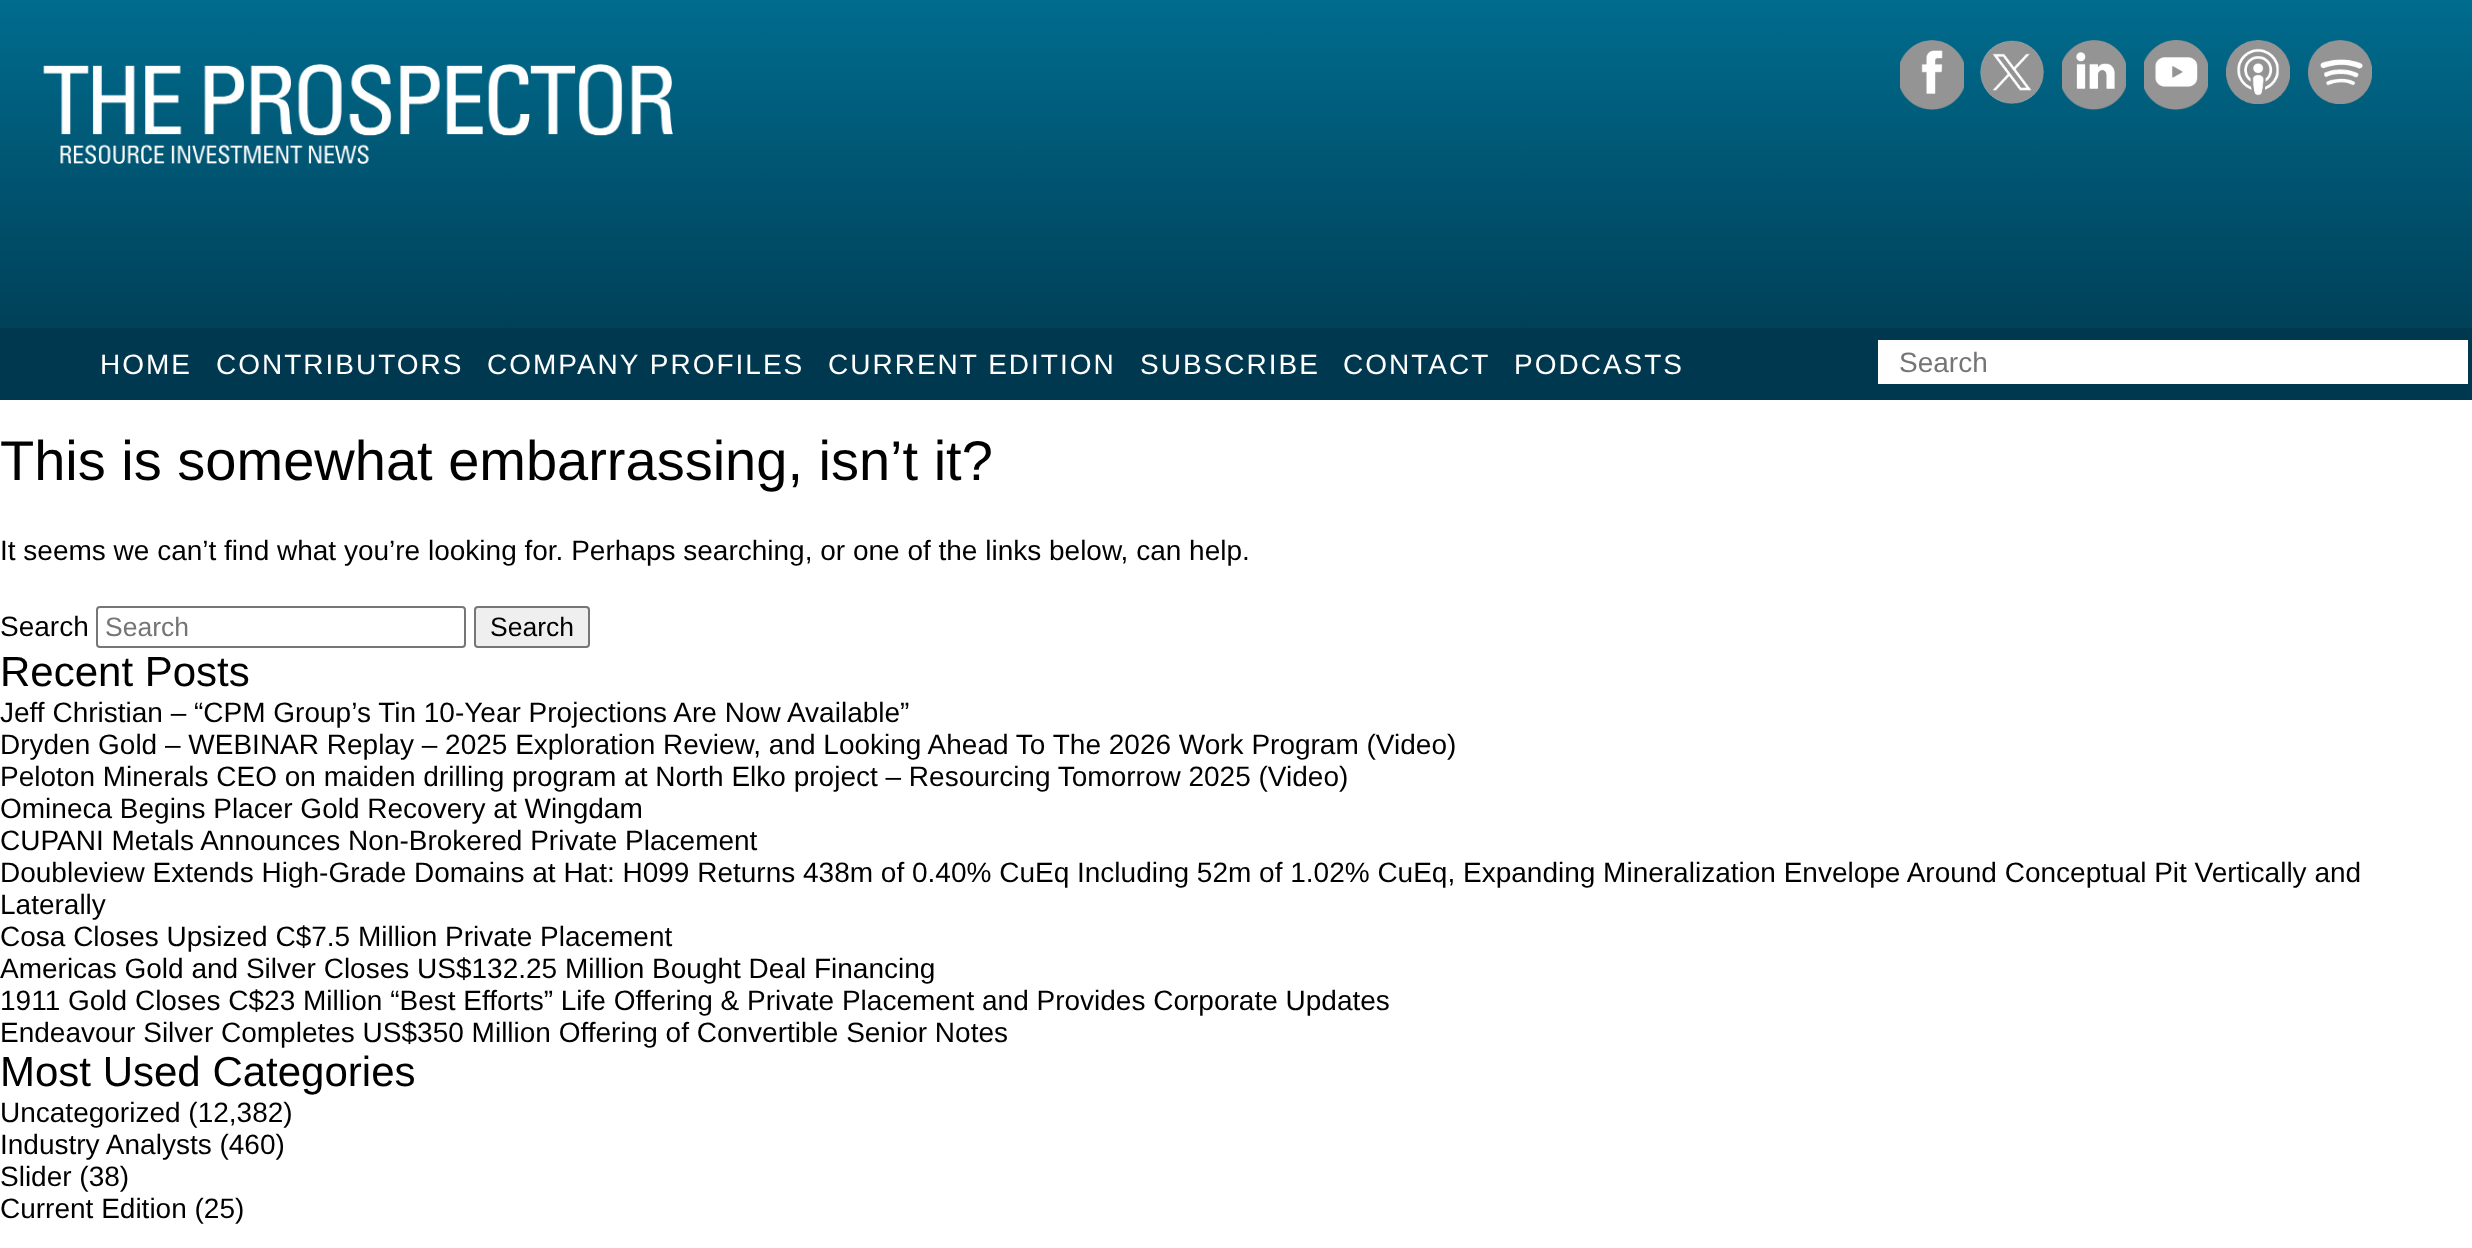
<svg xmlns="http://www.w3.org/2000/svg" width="2472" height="1248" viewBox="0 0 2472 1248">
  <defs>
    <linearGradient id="g1" gradientUnits="userSpaceOnUse" x1="1236" y1="0" x2="1236" y2="400"><stop offset="0" stop-color="#006c8e"/><stop offset="1" stop-color="#00374d"/></linearGradient>
  </defs>
  <rect width="100%" height="100%" fill="#ffffff"/>
  <rect x="0" y="0" width="2472" height="328" fill="url(#g1)"/>
  <image x="43" y="64" width="630" height="100" href="img1.png"/>
  <image x="1900" y="40" width="64" height="70" href="img2.png"/>
  <image x="1903" y="40" width="58" height="58" href="img3.png"/>
  <image x="1980" y="40" width="64" height="64" href="img4.png"/>
  <image x="2062" y="40" width="64" height="70" href="img5.png"/>
  <image x="2070" y="40" width="56" height="52" href="img6.png"/>
  <image x="2144" y="40" width="64" height="70" href="img7.png"/>
  <image x="2151" y="40" width="57" height="50" href="img8.png"/>
  <image x="2226" y="40" width="64" height="64" href="img9.png"/>
  <image x="2308" y="40" width="64" height="64" href="img10.png"/>
  <rect x="0" y="328" width="2472" height="72" fill="#00384f"/>
  <text x="100" y="374" font-family="Liberation Sans" font-size="28" letter-spacing="2" fill="#ffffff">HOME</text>
  <text x="216" y="374" font-family="Liberation Sans" font-size="28" letter-spacing="2" fill="#ffffff">CONTRIBUTORS</text>
  <text x="487" y="374" font-family="Liberation Sans" font-size="28" letter-spacing="2" fill="#ffffff">COMPANY PROFILES</text>
  <text x="828" y="374" font-family="Liberation Sans" font-size="28" letter-spacing="2" fill="#ffffff">CURRENT EDITION</text>
  <text x="1140" y="374" font-family="Liberation Sans" font-size="28" letter-spacing="2" fill="#ffffff">SUBSCRIBE</text>
  <text x="1343" y="374" font-family="Liberation Sans" font-size="28" letter-spacing="2" fill="#ffffff">CONTACT</text>
  <text x="1514" y="374" font-family="Liberation Sans" font-size="28" letter-spacing="2" fill="#ffffff">PODCASTS</text>
  <rect x="1878" y="340" width="590" height="44" fill="#ffffff"/>
  <text x="1899" y="372" font-family="Liberation Sans" font-size="28" fill="#757575">Search</text>
  <text x="0" y="480" font-family="Liberation Sans" font-size="56" fill="#000000">This is somewhat embarrassing, isn’t it?</text>
  <text x="0" y="560" font-family="Liberation Sans" font-size="28" fill="#000000">It seems we can’t find what you’re looking for. Perhaps searching, or one of the links below, can help.</text>
  <text x="0" y="636" font-family="Liberation Sans" font-size="28" fill="#000000">Search</text>
  <rect x="97" y="607" width="368" height="40" rx="3" fill="none" stroke="#767676" stroke-width="2"/>
  <text x="105" y="636" font-family="Liberation Sans" font-size="26.5" fill="#757575">Search</text>
  <rect x="475" y="607" width="114" height="40" rx="3" fill="#efefef" stroke="#767676" stroke-width="2"/>
  <text x="490" y="636" font-family="Liberation Sans" font-size="26.5" fill="#000000">Search</text>
  <text x="0" y="686" font-family="Liberation Sans" font-size="42" fill="#000000">Recent Posts</text>
  <text x="0" y="722" font-family="Liberation Sans" font-size="28" fill="#000000">Jeff Christian – “CPM Group’s Tin 10-Year Projections Are Now Available”</text>
  <text x="0" y="754" font-family="Liberation Sans" font-size="28" fill="#000000">Dryden Gold – WEBINAR Replay – 2025 Exploration Review, and Looking Ahead To The 2026 Work Program (Video)</text>
  <text x="0" y="786" font-family="Liberation Sans" font-size="28" fill="#000000">Peloton Minerals CEO on maiden drilling program at North Elko project – Resourcing Tomorrow 2025 (Video)</text>
  <text x="0" y="818" font-family="Liberation Sans" font-size="28" fill="#000000">Omineca Begins Placer Gold Recovery at Wingdam</text>
  <text x="0" y="850" font-family="Liberation Sans" font-size="28" fill="#000000">CUPANI Metals Announces Non-Brokered Private Placement</text>
  <text x="0" y="882" font-family="Liberation Sans" font-size="28" fill="#000000">Doubleview Extends High-Grade Domains at Hat: H099 Returns 438m of 0.40% CuEq Including 52m of 1.02% CuEq, Expanding Mineralization Envelope Around Conceptual Pit Vertically and</text>
  <text x="0" y="914" font-family="Liberation Sans" font-size="28" fill="#000000">Laterally</text>
  <text x="0" y="946" font-family="Liberation Sans" font-size="28" fill="#000000">Cosa Closes Upsized C$7.5 Million Private Placement</text>
  <text x="0" y="978" font-family="Liberation Sans" font-size="28" fill="#000000">Americas Gold and Silver Closes US$132.25 Million Bought Deal Financing</text>
  <text x="0" y="1010" font-family="Liberation Sans" font-size="28" fill="#000000">1911 Gold Closes C$23 Million “Best Efforts” Life Offering &amp; Private Placement and Provides Corporate Updates</text>
  <text x="0" y="1042" font-family="Liberation Sans" font-size="28" fill="#000000">Endeavour Silver Completes US$350 Million Offering of Convertible Senior Notes</text>
  <text x="0" y="1086" font-family="Liberation Sans" font-size="42" fill="#000000">Most Used Categories</text>
  <text x="0" y="1122" font-family="Liberation Sans" font-size="28" fill="#000000">Uncategorized (12,382)</text>
  <text x="0" y="1154" font-family="Liberation Sans" font-size="28" fill="#000000">Industry Analysts (460)</text>
  <text x="0" y="1186" font-family="Liberation Sans" font-size="28" fill="#000000">Slider (38)</text>
  <text x="0" y="1218" font-family="Liberation Sans" font-size="28" fill="#000000">Current Edition (25)</text>
</svg>
